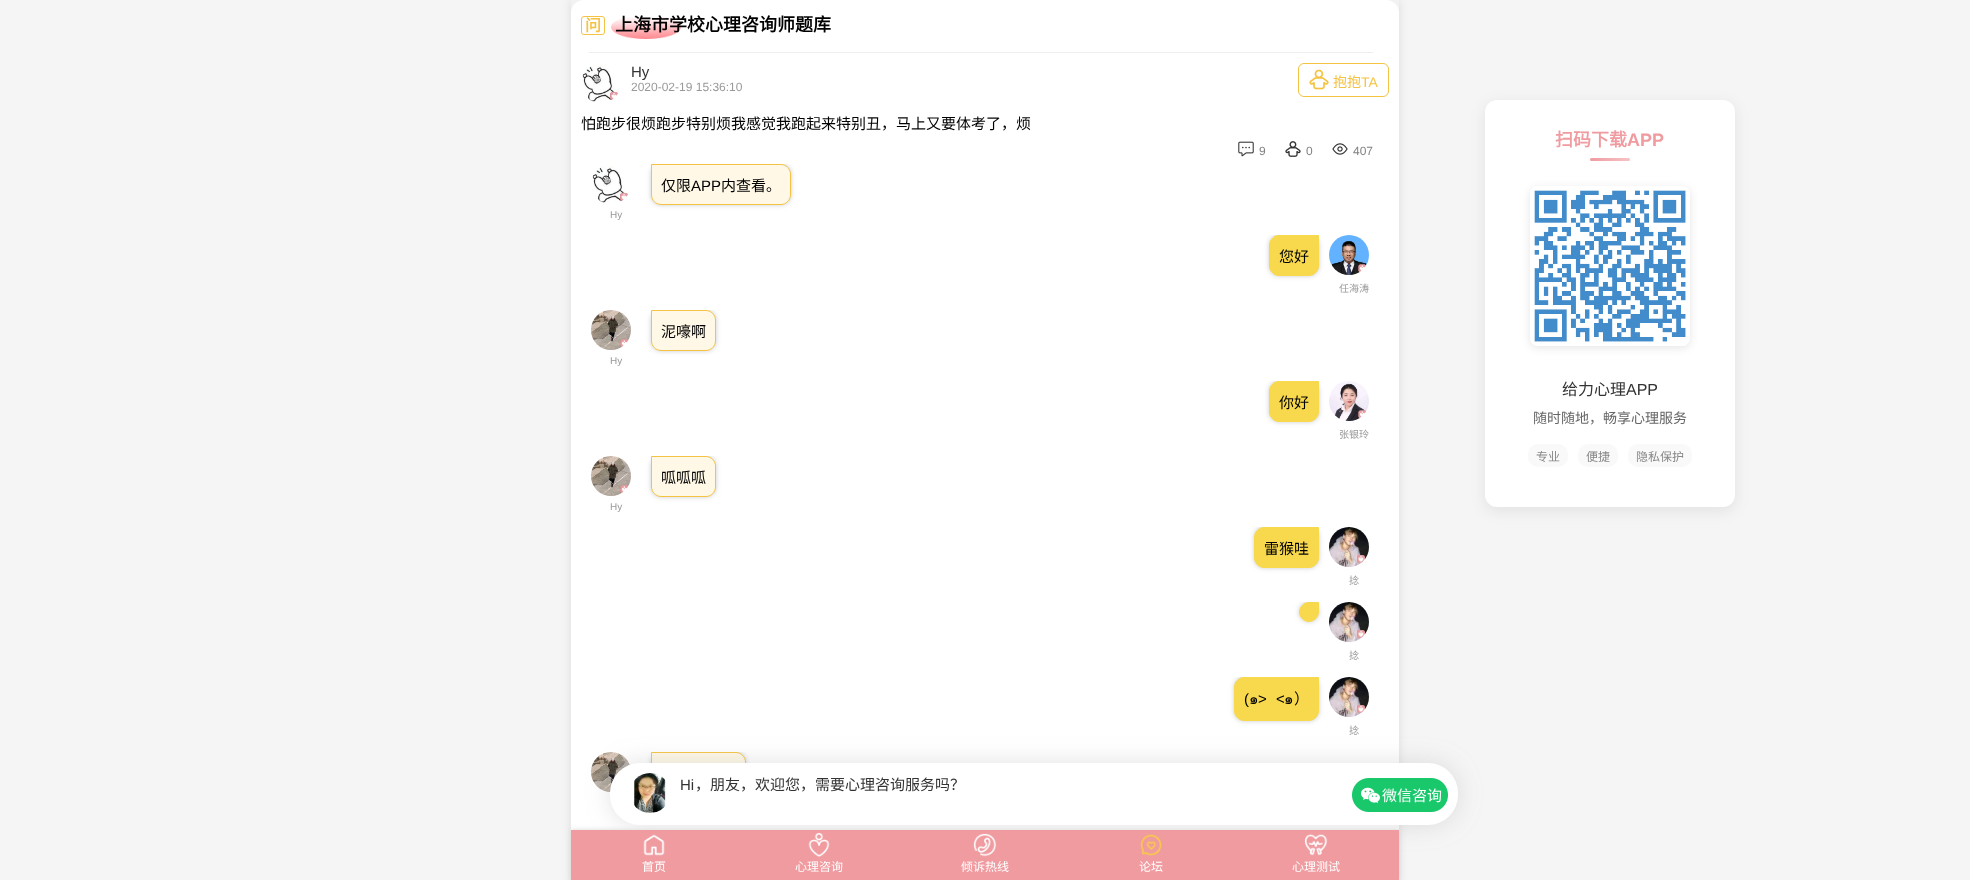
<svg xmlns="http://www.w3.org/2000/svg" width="1970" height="880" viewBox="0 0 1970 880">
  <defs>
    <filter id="blur1" x="-50%" y="-200%" width="200%" height="500%"><feGaussianBlur stdDeviation="5"/></filter>
    <clipPath id="clip1"><rect x="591" y="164" width="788" height="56"/></clipPath>
    <filter id="blur2" x="-50%" y="-200%" width="200%" height="500%"><feGaussianBlur stdDeviation="2.5"/></filter>
    <clipPath id="clip2"><rect x="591" y="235" width="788" height="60"/></clipPath>
    <clipPath id="clip3"><rect x="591" y="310" width="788" height="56"/></clipPath>
    <clipPath id="clip4"><rect x="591" y="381" width="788" height="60"/></clipPath>
    <clipPath id="clip5"><rect x="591" y="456" width="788" height="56"/></clipPath>
    <clipPath id="clip6"><rect x="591" y="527" width="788" height="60"/></clipPath>
    <clipPath id="clip7"><rect x="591" y="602" width="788" height="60"/></clipPath>
    <clipPath id="clip8"><rect x="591" y="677" width="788" height="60"/></clipPath>
    <clipPath id="clip9"><rect x="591" y="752" width="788" height="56"/></clipPath>
    <filter id="blur3" x="-50%" y="-200%" width="200%" height="500%"><feGaussianBlur stdDeviation="12"/></filter>
    <filter id="blur4" x="-50%" y="-200%" width="200%" height="500%"><feGaussianBlur stdDeviation="7.5"/></filter>
    <linearGradient id="g1" gradientUnits="userSpaceOnUse" x1="1590" y1="160" x2="1630" y2="160"><stop offset="0" stop-color="#ef9ba0"/><stop offset="1" stop-color="#f7c2c5"/></linearGradient>
    <clipPath id="clip10"><path d="M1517 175H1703V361H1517ZM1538 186H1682C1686.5 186 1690 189.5 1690 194V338C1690 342.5 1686.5 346 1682 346H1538C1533.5 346 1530 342.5 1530 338V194C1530 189.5 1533.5 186 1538 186Z" clip-rule="evenodd"/></clipPath>
    <filter id="blur5" x="-50%" y="-200%" width="200%" height="500%"><feGaussianBlur stdDeviation="4"/></filter>
  </defs>
  <rect width="100%" height="100%" fill="#f5f5f5"/>
  <rect x="571" y="0" width="828" height="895" fill="#000000" fill-opacity="0.1" filter="url(#blur1)"/>
  <rect x="571" y="0" width="828" height="13" fill="#f2f2f2"/>
  <rect x="571" y="0" width="828" height="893" rx="13" fill="#ffffff"/>
  <image x="611" y="17" width="70" height="22" href="img1.png"/>
  <rect x="581.5" y="16.5" width="23" height="18" rx="2.5" fill="none" stroke="#f5c344"/>
  <text x="585" y="31" font-family="Noto Sans CJK SC" font-size="16" font-weight="bold" fill="#f5c344">问</text>
  <text x="615" y="31" font-family="Noto Sans CJK SC" font-size="18" font-weight="bold" fill="#000000">上海市学校心理咨询师题库</text>
  <rect x="589" y="52" width="784" height="1" fill="#eeeeee"/>
  <image x="582" y="63" width="36" height="39" href="img2.png"/>
  <text x="631" y="77" font-family="Liberation Sans" font-size="15" fill="#333333">Hy</text>
  <text x="631" y="91" font-family="Liberation Sans" font-size="12" fill="#999999">2020-02-19 15:36:10</text>
  <rect x="1298.5" y="63.5" width="90" height="33" rx="5.5" fill="none" stroke="#f5c344"/>
  <image x="1309" y="69" width="20" height="21" href="img3.png"/>
  <text x="1333" y="87" font-family="Noto Sans CJK SC" font-size="14" fill="#f5c344">抱抱</text>
  <text x="1361" y="87" font-family="Liberation Sans" font-size="14" fill="#f5c344">TA</text>
  <text x="581" y="129" font-family="Noto Sans CJK SC" font-size="15" fill="#000000">怕跑步很烦跑步特别烦我感觉我跑起来特别丑，马上又要体考了，烦</text>
  <image x="1238" y="141" width="16" height="16" href="img4.png"/>
  <text x="1259" y="155" font-family="Liberation Sans" font-size="12" fill="#808080">9</text>
  <image x="1285" y="141" width="16" height="16" href="img5.png"/>
  <text x="1306" y="155" font-family="Liberation Sans" font-size="12" fill="#808080">0</text>
  <image x="1332" y="143" width="16" height="12" href="img6.png"/>
  <text x="1353" y="155" font-family="Liberation Sans" font-size="12" fill="#808080">407</text>
  <g clip-path="url(#clip1)">
    <rect x="651" y="164" width="140" height="41" rx="10" fill="#cccccc" filter="url(#blur2)"/>
  </g>
  <path d="M651.5 164.5H781C786 164.5 790.5 169 790.5 174V195C790.5 200 786 204.5 781 204.5H661C656 204.5 651.5 200 651.5 195Z" fill="#fff8e6" stroke="#f5c344"/>
  <text x="661" y="191" font-family="Noto Sans CJK SC" font-size="15" fill="#000000">仅限</text>
  <text x="691" y="191" font-family="Liberation Sans" font-size="15" fill="#000000">APP</text>
  <text x="721" y="191" font-family="Noto Sans CJK SC" font-size="15" fill="#000000">内查看。</text>
  <image x="592" y="164" width="36" height="39" href="img7.png"/>
  <text x="610" y="218" font-family="Liberation Sans" font-size="10" fill="#999999">Hy</text>
  <g clip-path="url(#clip2)">
    <rect x="1269" y="235" width="50" height="41" rx="10" fill="#cccccc" filter="url(#blur2)"/>
  </g>
  <path d="M1279 235.5H1318.5V266C1318.5 271 1314 275.5 1309 275.5H1279C1274 275.5 1269.5 271 1269.5 266V245C1269.5 240 1274 235.5 1279 235.5Z" fill="#f8d94d" stroke="#f8d94d"/>
  <text x="1279" y="262" font-family="Noto Sans CJK SC" font-size="15" fill="#000000">您好</text>
  <image x="1329" y="235" width="40" height="40" href="img8.png"/>
  <text x="1339" y="292" font-family="Noto Sans CJK SC" font-size="10" fill="#999999">任海涛</text>
  <g clip-path="url(#clip3)">
    <rect x="651" y="310" width="65" height="41" rx="10" fill="#cccccc" filter="url(#blur2)"/>
  </g>
  <path d="M651.5 310.5H706C711 310.5 715.5 315 715.5 320V341C715.5 346 711 350.5 706 350.5H661C656 350.5 651.5 346 651.5 341Z" fill="#fff8e6" stroke="#f5c344"/>
  <text x="661" y="337" font-family="Noto Sans CJK SC" font-size="15" fill="#000000">泥嚎啊</text>
  <image x="591" y="310" width="40" height="40" href="img9.png"/>
  <text x="610" y="364" font-family="Liberation Sans" font-size="10" fill="#999999">Hy</text>
  <g clip-path="url(#clip4)">
    <rect x="1269" y="381" width="50" height="41" rx="10" fill="#cccccc" filter="url(#blur2)"/>
  </g>
  <path d="M1279 381.5H1318.5V412C1318.5 417 1314 421.5 1309 421.5H1279C1274 421.5 1269.5 417 1269.5 412V391C1269.5 386 1274 381.5 1279 381.5Z" fill="#f8d94d" stroke="#f8d94d"/>
  <text x="1279" y="408" font-family="Noto Sans CJK SC" font-size="15" fill="#000000">你好</text>
  <image x="1329" y="381" width="40" height="40" href="img10.png"/>
  <text x="1339" y="438" font-family="Noto Sans CJK SC" font-size="10" fill="#999999">张银玲</text>
  <g clip-path="url(#clip5)">
    <rect x="651" y="456" width="65" height="41" rx="10" fill="#cccccc" filter="url(#blur2)"/>
  </g>
  <path d="M651.5 456.5H706C711 456.5 715.5 461 715.5 466V487C715.5 492 711 496.5 706 496.5H661C656 496.5 651.5 492 651.5 487Z" fill="#fff8e6" stroke="#f5c344"/>
  <text x="661" y="483" font-family="Noto Sans CJK SC" font-size="15" fill="#000000">呱呱呱</text>
  <image x="591" y="456" width="40" height="40" href="img11.png"/>
  <text x="610" y="510" font-family="Liberation Sans" font-size="10" fill="#999999">Hy</text>
  <g clip-path="url(#clip6)">
    <rect x="1254" y="527" width="65" height="41" rx="10" fill="#cccccc" filter="url(#blur2)"/>
  </g>
  <path d="M1264 527.5H1318.5V558C1318.5 563 1314 567.5 1309 567.5H1264C1259 567.5 1254.5 563 1254.5 558V537C1254.5 532 1259 527.5 1264 527.5Z" fill="#f8d94d" stroke="#f8d94d"/>
  <text x="1264" y="554" font-family="Noto Sans CJK SC" font-size="15" fill="#000000">雷猴哇</text>
  <image x="1329" y="527" width="40" height="40" href="img12.png"/>
  <text x="1349" y="584" font-family="Noto Sans CJK SC" font-size="10" fill="#999999">捻</text>
  <g clip-path="url(#clip7)">
    <rect x="1299" y="602" width="20" height="20" rx="10" fill="#cccccc" filter="url(#blur2)"/>
  </g>
  <path d="M1309 602.5H1318.5V612C1318.5 617 1314 621.5 1309 621.5C1304 621.5 1299.5 617 1299.5 612C1299.5 607 1304 602.5 1309 602.5Z" fill="#f8d94d" stroke="#f8d94d"/>
  <image x="1329" y="602" width="40" height="40" href="img12.png"/>
  <text x="1349" y="659" font-family="Noto Sans CJK SC" font-size="10" fill="#999999">捻</text>
  <g clip-path="url(#clip8)">
    <rect x="1234" y="677" width="85" height="44" rx="10" fill="#cccccc" filter="url(#blur2)"/>
  </g>
  <path d="M1244 677.5H1318.5V711C1318.5 716 1314 720.5 1309 720.5H1244C1239 720.5 1234.5 716 1234.5 711V687C1234.5 682 1239 677.5 1244 677.5Z" fill="#f8d94d" stroke="#f8d94d"/>
  <text x="1244" y="704" font-family="Liberation Sans" font-size="15" fill="#000000">(</text>
  <text x="1249" y="704" font-family="Loma" font-size="15" fill="#000000">๑</text>
  <text x="1258" y="704" font-family="Liberation Sans" font-size="15" fill="#000000">&gt;</text>
  <text x="1276" y="704" font-family="Liberation Sans" font-size="15" fill="#000000">&lt;</text>
  <text x="1284" y="704" font-family="Loma" font-size="15" fill="#000000">๑</text>
  <text x="1294" y="704" font-family="Noto Sans CJK SC" font-size="15" fill="#000000">）</text>
  <image x="1329" y="677" width="40" height="40" href="img12.png"/>
  <text x="1349" y="734" font-family="Noto Sans CJK SC" font-size="10" fill="#999999">捻</text>
  <image x="591" y="752" width="39" height="40" href="img13.png"/>
  <g clip-path="url(#clip9)">
    <rect x="651" y="752" width="95" height="41" rx="10" fill="#cccccc" filter="url(#blur2)"/>
  </g>
  <path d="M651.5 752.5H736C741 752.5 745.5 757 745.5 762V783C745.5 788 741 792.5 736 792.5H661C656 792.5 651.5 788 651.5 783Z" fill="#fff8e6" stroke="#f5c344"/>
  <rect x="610" y="763" width="848" height="62" rx="30" fill="#a8a8a8" fill-opacity="0.35" filter="url(#blur3)"/>
  <rect x="610" y="763" width="848" height="62" rx="30" fill="#ffffff"/>
  <image x="633" y="773" width="35" height="40" href="img14.png"/>
  <text x="680" y="790" font-family="Liberation Sans" font-size="15" fill="#333333">Hi</text>
  <text x="695" y="790" font-family="Noto Sans CJK SC" font-size="15" fill="#333333">，朋友，欢迎您，需要心理咨询服务吗？</text>
  <image x="1352" y="778" width="96" height="34" href="img15.png"/>
  <text x="1382" y="801" font-family="Noto Sans CJK SC" font-size="15" fill="#ffffff">微信咨询</text>
  <rect x="571" y="830" width="828" height="50" fill="#d7d7d7" filter="url(#blur2)"/>
  <rect x="571" y="830" width="828" height="50" fill="#ef9ba0"/>
  <image x="643" y="834" width="22" height="22" href="img16.png"/>
  <text x="642" y="871" font-family="Noto Sans CJK SC" font-size="12" fill="#ffffff">首页</text>
  <image x="808" y="833" width="22" height="24" href="img17.png"/>
  <text x="795" y="871" font-family="Noto Sans CJK SC" font-size="12" fill="#ffffff">心理咨询</text>
  <image x="973" y="833" width="24" height="24" href="img18.png"/>
  <text x="961" y="871" font-family="Noto Sans CJK SC" font-size="12" fill="#ffffff">倾诉热线</text>
  <image x="1140" y="834" width="22" height="22" href="img19.png"/>
  <text x="1139" y="871" font-family="Noto Sans CJK SC" font-size="12" fill="#ffffff">论坛</text>
  <image x="1304" y="834" width="24" height="22" href="img20.png"/>
  <text x="1292" y="871" font-family="Noto Sans CJK SC" font-size="12" fill="#ffffff">心理测试</text>
  <rect x="1485" y="104" width="250" height="407" rx="12" fill="#000000" fill-opacity="0.08" filter="url(#blur4)"/>
  <rect x="1485" y="100" width="250" height="407" rx="12" fill="#ffffff"/>
  <text x="1555" y="146" font-family="Noto Sans CJK SC" font-size="18" font-weight="bold" fill="#ef9ba0">扫码下载</text>
  <text x="1627" y="146" font-family="Liberation Sans" font-size="18" font-weight="bold" fill="#ef9ba0">APP</text>
  <rect x="1590" y="158" width="40" height="3" rx="1.5" fill="url(#g1)"/>
  <g clip-path="url(#clip10)">
    <rect x="1530" y="188" width="160" height="160" rx="8" fill="#000000" fill-opacity="0.1" filter="url(#blur5)"/>
  </g>
  <image x="1534" y="190" width="152" height="156" href="img21.png"/>
  <text x="1562" y="395" font-family="Noto Sans CJK SC" font-size="16" fill="#333333">给力心理</text>
  <text x="1626" y="395" font-family="Liberation Sans" font-size="16" fill="#333333">APP</text>
  <text x="1533" y="423" font-family="Noto Sans CJK SC" font-size="14" fill="#666666">随时随地，畅享心理服务</text>
  <rect x="1528" y="444" width="40" height="23" rx="10" fill="#f9f9f9"/>
  <text x="1536" y="461" font-family="Noto Sans CJK SC" font-size="12" fill="#888888">专业</text>
  <rect x="1578" y="444" width="40" height="23" rx="10" fill="#f9f9f9"/>
  <text x="1586" y="461" font-family="Noto Sans CJK SC" font-size="12" fill="#888888">便捷</text>
  <rect x="1628" y="444" width="64" height="23" rx="10" fill="#f9f9f9"/>
  <text x="1636" y="461" font-family="Noto Sans CJK SC" font-size="12" fill="#888888">隐私保护</text>
</svg>
